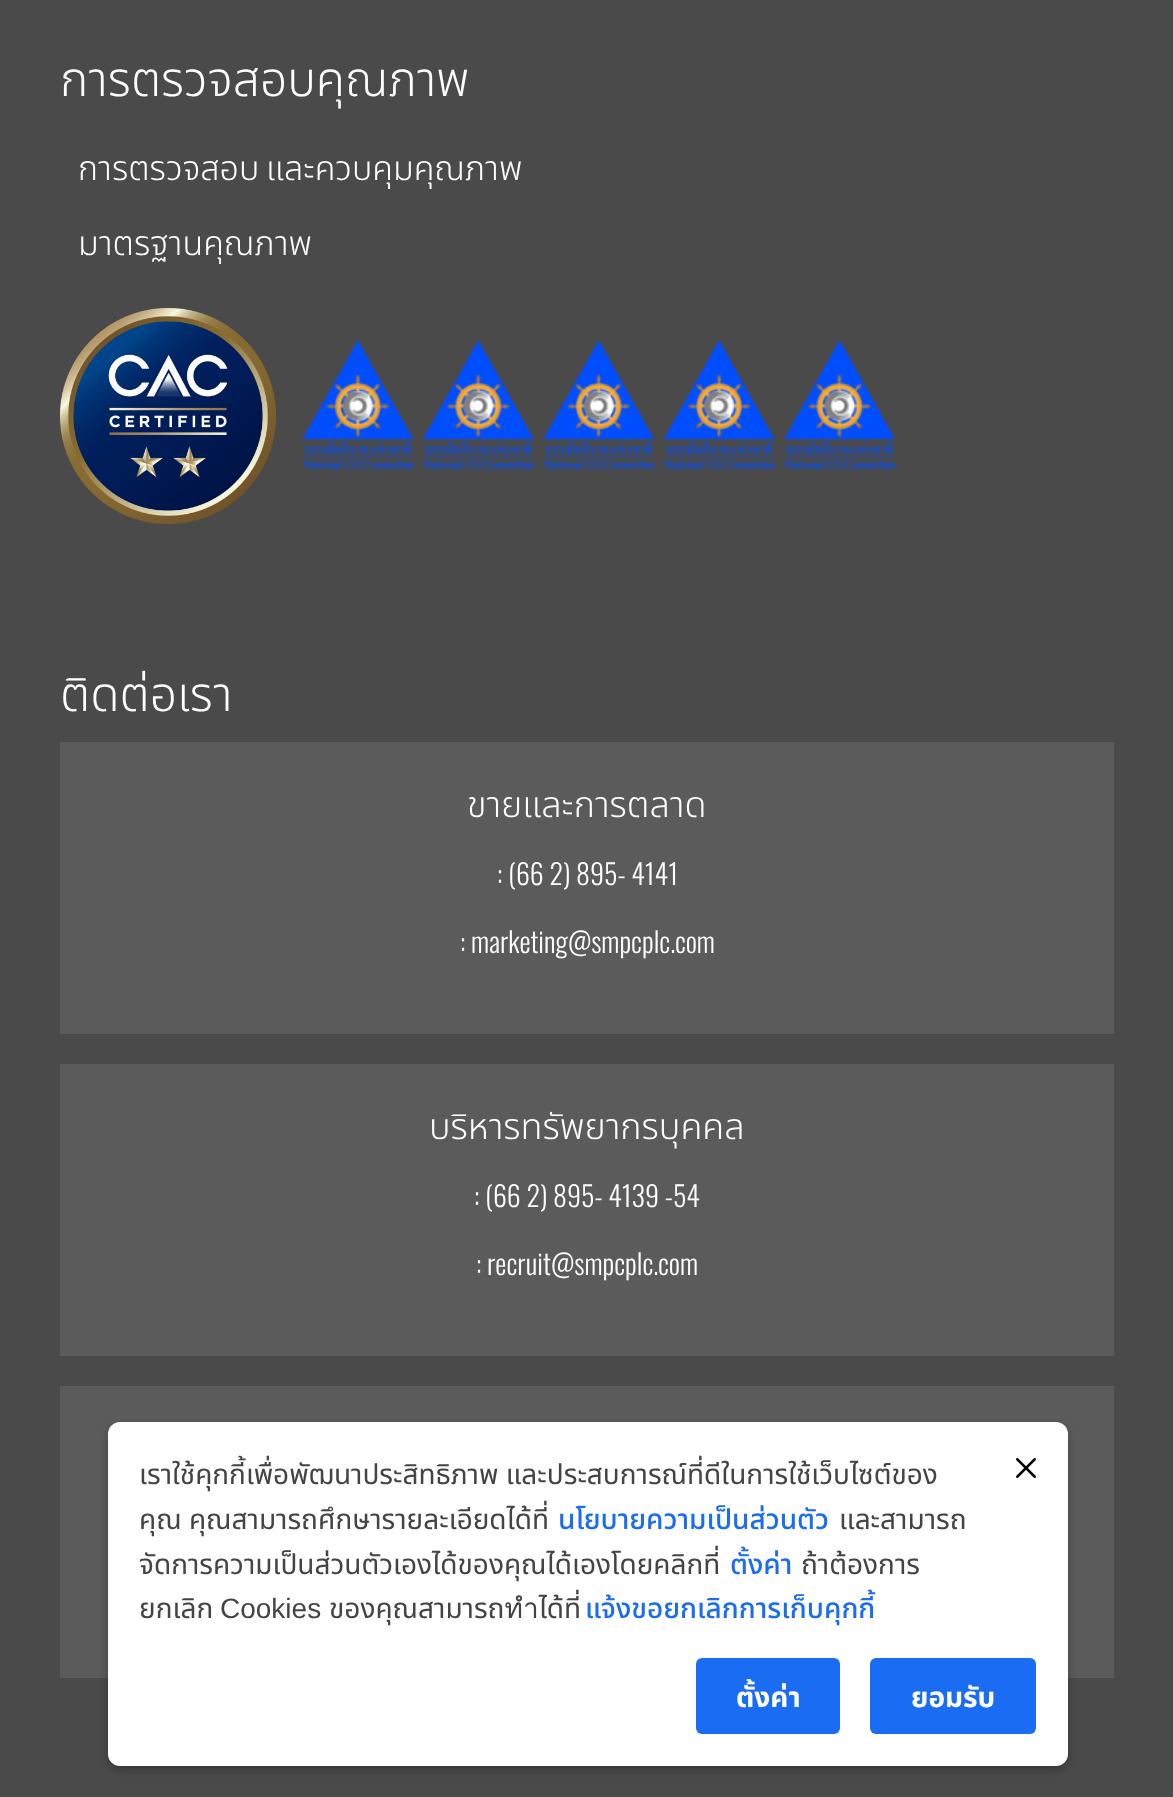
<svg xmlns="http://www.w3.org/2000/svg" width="1173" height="1797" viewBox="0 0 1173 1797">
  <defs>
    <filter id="blur1" x="-50%" y="-200%" width="200%" height="500%"><feGaussianBlur stdDeviation="5"/></filter>
  </defs>
  <rect width="100%" height="100%" fill="#4a4a4a"/>
  <text x="60" y="96" font-family="Noto Sans Thai" font-size="48" font-weight="300" fill="#ffffff">การตรวจสอบคุณภาพ</text>
  <text x="78" y="180" word-spacing="-2" font-family="Noto Sans Thai" font-size="34" font-weight="300" fill="#ffffff">การตรวจสอบ และควบคุมคุณภาพ</text>
  <text x="78" y="255" font-family="Noto Sans Thai" font-size="34" font-weight="300" fill="#ffffff">มาตรฐานคุณภาพ</text>
  <image x="60" y="308" width="216" height="216" href="img1.png"/>
  <image x="301" y="339" width="595" height="132" href="img2.png"/>
  <text x="60" y="711" font-family="Noto Sans Thai" font-size="48" font-weight="300" fill="#ffffff">ติดต่อเรา</text>
  <rect x="60" y="742" width="1054" height="292" fill="#5b5b5b"/>
  <text x="467" y="817" font-family="Noto Sans Thai" font-size="36" font-weight="300" fill="#ffffff">ขายและการตลาด</text>
  <text x="497" y="885" font-family="Oswald" font-size="28" font-weight="300" fill="#ffffff">: (66 2) 895- 4141</text>
  <text x="460" y="953" font-family="Oswald" font-size="28" font-weight="300" fill="#ffffff">: marketing@smpcplc.com</text>
  <rect x="60" y="1064" width="1054" height="292" fill="#5b5b5b"/>
  <text x="429" y="1139" font-family="Noto Sans Thai" font-size="36" font-weight="300" fill="#ffffff">บริหารทรัพยากรบุคคล</text>
  <text x="474" y="1207" font-family="Oswald" font-size="28" font-weight="300" fill="#ffffff">: (66 2) 895- 4139 -54</text>
  <text x="476" y="1275" font-family="Oswald" font-size="28" font-weight="300" fill="#ffffff">: recruit@smpcplc.com</text>
  <rect x="60" y="1386" width="1054" height="292" fill="#5b5b5b"/>
  <rect x="108" y="1426" width="960" height="344" rx="12" fill="#000000" fill-opacity="0.25" filter="url(#blur1)"/>
  <rect x="108" y="1422" width="960" height="344" rx="12" fill="#ffffff"/>
  <text x="139" y="1484" font-family="Noto Sans Thai" font-size="28" fill="#444444">เราใช้คุกกี้เพื่อพัฒนาประสิทธิภาพ และประสบการณ์ที่ดีในการใช้เว็บไซต์ของ</text>
  <text x="139" y="1529" font-family="Noto Sans Thai" font-size="28" fill="#444444">คุณ คุณสามารถศึกษารายละเอียดได้ที่</text>
  <text x="558" y="1529" font-family="Noto Sans Thai" font-size="28" font-weight="500" fill="#1a6cf3">นโยบายความเป็นส่วนตัว</text>
  <text x="839" y="1529" font-family="Noto Sans Thai" font-size="28" fill="#444444">และสามารถ</text>
  <text x="139" y="1574" font-family="Noto Sans Thai" font-size="28" fill="#444444">จัดการความเป็นส่วนตัวเองได้ของคุณได้เองโดยคลิกที่</text>
  <text x="730" y="1574" font-family="Noto Sans Thai" font-size="28" font-weight="500" fill="#1a6cf3">ตั้งค่า</text>
  <text x="801" y="1574" font-family="Noto Sans Thai" font-size="28" fill="#444444">ถ้าต้องการ</text>
  <text x="139" y="1618" font-family="Noto Sans Thai" font-size="28" fill="#444444">ยกเลิก</text>
  <text x="220" y="1618" font-family="Liberation Sans" font-size="28" fill="#444444">Cookies</text>
  <text x="329" y="1618" font-family="Noto Sans Thai" font-size="28" fill="#444444">ของคุณสามารถทำได้ที่</text>
  <text x="585" y="1618" font-family="Noto Sans Thai" font-size="28" font-weight="500" fill="#1a6cf3">แจ้งขอยกเลิกการเก็บคุกกี้</text>
  <image x="1016" y="1458" width="20" height="20" href="img3.png"/>
  <rect x="696" y="1658" width="144" height="76" rx="6" fill="#1a6cf3"/>
  <text x="736" y="1707" font-family="Noto Sans Thai" font-size="28" font-weight="bold" fill="#ffffff">ตั้งค่า</text>
  <rect x="870" y="1658" width="166" height="76" rx="6" fill="#1a6cf3"/>
  <text x="911" y="1707" font-family="Noto Sans Thai" font-size="28" font-weight="bold" fill="#ffffff">ยอมรับ</text>
</svg>
